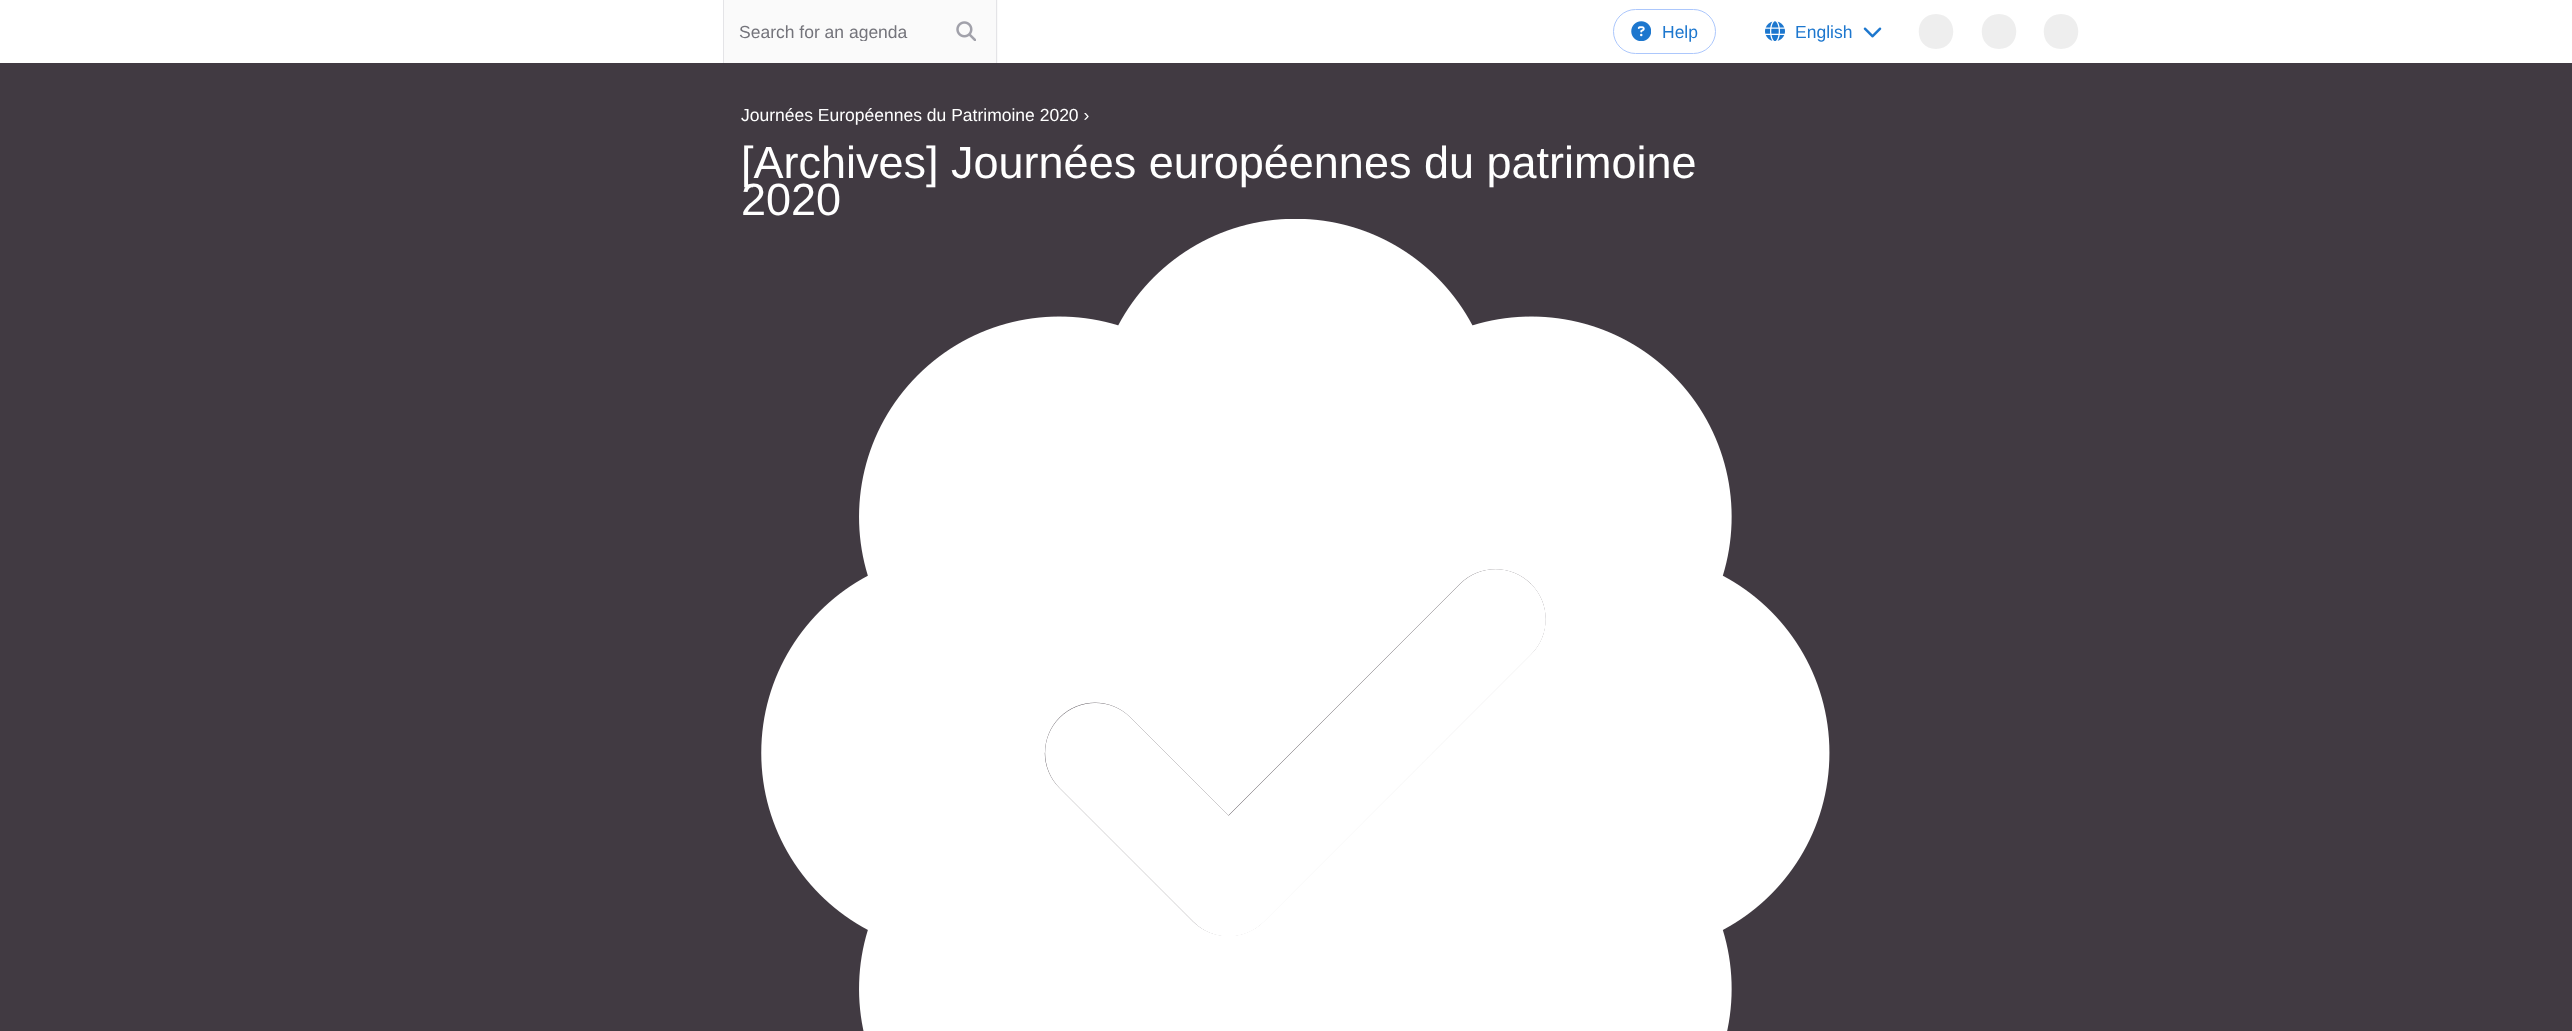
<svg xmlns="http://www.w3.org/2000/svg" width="2572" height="1031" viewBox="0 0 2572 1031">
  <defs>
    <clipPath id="clip1"><rect x="739" y="21" width="195" height="20"/></clipPath>
    <linearGradient id="g1" gradientUnits="userSpaceOnUse" x1="1561" y1="6.2" x2="1736" y2="6.2"><stop offset="0" stop-color="#eeeeee"/><stop offset="0.5" stop-color="#d6d6d6"/><stop offset="1" stop-color="#eeeeee"/></linearGradient>
  </defs>
  <rect width="100%" height="100%" fill="#413a42"/>
  <rect x="0" y="0" width="2572" height="63" fill="#ffffff"/>
  <rect x="724" y="0" width="274" height="63" fill="#fafafa"/>
  <rect x="996" y="0" width="1" height="63" fill="#e4e4e7"/>
  <rect x="723" y="0" width="1" height="63" fill="#e4e4e7"/>
  <g clip-path="url(#clip1)">
    <text x="739" y="38" font-family="Liberation Sans" font-size="17.5" fill="#74747b">Search for an agenda</text>
  </g>
  <image x="956" y="21" width="20" height="20" href="img1.png"/>
  <rect x="1613.5" y="9.5" width="102" height="44" rx="22" fill="none" stroke="#acc7fc"/>
  <image x="1631" y="21" width="20" height="20" href="img2.png"/>
  <text x="1662" y="38" font-family="Liberation Sans" font-size="17.5" fill="#1d77ce">Help</text>
  <image x="1765" y="21" width="20" height="20" href="img3.png"/>
  <text x="1795" y="38" font-family="Liberation Sans" font-size="17.5" fill="#1d77ce">English</text>
  <image x="1863" y="27" width="19" height="11" href="img4.png"/>
  <path d="M1936 14C1913 14 1913 49 1936 49C1959 49 1959 14 1936 14ZM1999 14C1976 14 1976 49 1999 49C2022 49 2022 14 1999 14ZM2061 14C2038 14 2038 49 2061 49C2084 49 2084 14 2061 14Z" fill="url(#g1)" fill-rule="evenodd"/>
  <text x="741" y="121" font-family="Liberation Sans" font-size="17.5" fill="#ffffff">Journées Européennes du Patrimoine 2020 ›</text>
  <text x="741" y="178" font-family="Liberation Sans" font-size="45" fill="#ffffff">[Archives] Journées européennes du patrimoine</text>
  <text x="741" y="215" font-family="Liberation Sans" font-size="45" fill="#ffffff">2020</text>
  <image x="761" y="219" width="1069" height="812" href="img5.png"/>
</svg>
